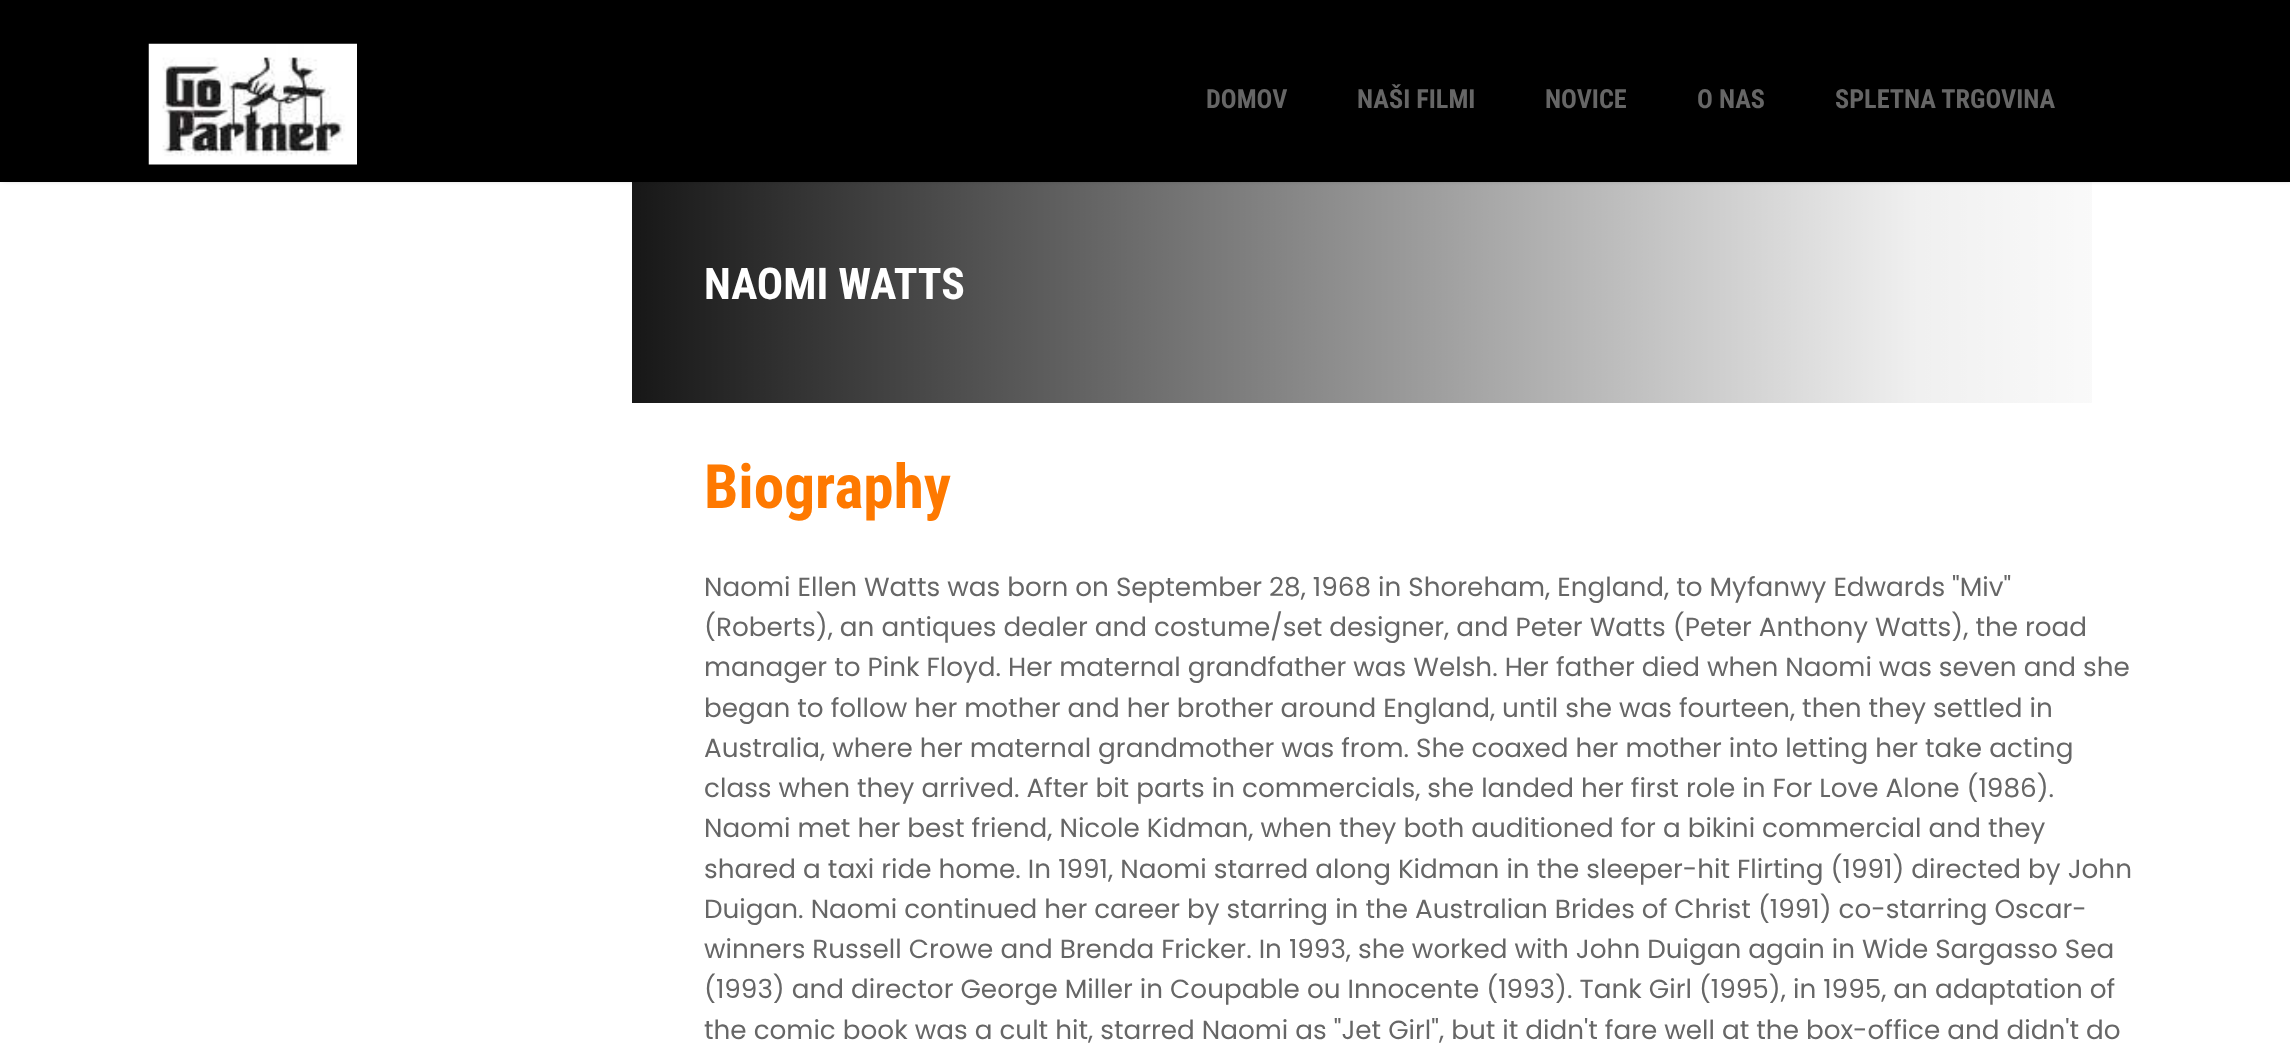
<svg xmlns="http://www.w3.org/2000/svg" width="2290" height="1053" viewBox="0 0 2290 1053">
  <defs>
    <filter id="blur1" x="-50%" y="-200%" width="200%" height="500%"><feGaussianBlur stdDeviation="3.5"/></filter>
    <linearGradient id="g1" gradientUnits="userSpaceOnUse" x1="632" y1="292" x2="2144" y2="292"><stop offset="0" stop-color="#000000" stop-opacity="0.91"/><stop offset="0.85" stop-color="#000000" stop-opacity="0.06"/><stop offset="1" stop-color="#000000" stop-opacity="0.01"/></linearGradient>
  </defs>
  <rect width="100%" height="100%" fill="#ffffff"/>
  <rect x="2" y="-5" width="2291" height="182" fill="#000000" filter="url(#blur1)"/>
  <rect x="0" y="0" width="2290" height="182" fill="#000000"/>
  <image x="148" y="43" width="209" height="122" href="img1.png"/>
  <text x="1206" y="108" font-family="Roboto Condensed" font-size="26.25" font-weight="bold" fill="#666666">DOMOV</text>
  <text x="1357" y="108" font-family="Roboto Condensed" font-size="26.25" font-weight="bold" fill="#666666">NAŠI FILMI</text>
  <text x="1545" y="108" font-family="Roboto Condensed" font-size="26.25" font-weight="bold" fill="#666666">NOVICE</text>
  <text x="1697" y="108" font-family="Roboto Condensed" font-size="26.25" font-weight="bold" fill="#666666">O NAS</text>
  <text x="1835" y="108" font-family="Roboto Condensed" font-size="26.25" font-weight="bold" fill="#666666">SPLETNA TRGOVINA</text>
  <rect x="632" y="182" width="1460" height="221" fill="url(#g1)"/>
  <text x="704" y="299" font-family="Roboto Condensed" font-size="43.75" font-weight="bold" fill="#ffffff">NAOMI WATTS</text>
  <text x="704" y="508" font-family="Roboto Condensed" font-size="61.25" font-weight="bold" fill="#fe7900">Biography</text>
  <text x="704" y="596" font-family="Poppins" font-size="26.25" fill="#666666">Naomi Ellen Watts was born on September 28, 1968 in Shoreham, England, to Myfanwy Edwards "Miv"</text>
  <text x="704" y="636" font-family="Poppins" font-size="26.25" fill="#666666">(Roberts), an antiques dealer and costume/set designer, and Peter Watts (Peter Anthony Watts), the road</text>
  <text x="704" y="676" font-family="Poppins" font-size="26.25" fill="#666666">manager to Pink Floyd. Her maternal grandfather was Welsh. Her father died when Naomi was seven and she</text>
  <text x="704" y="717" font-family="Poppins" font-size="26.25" fill="#666666">began to follow her mother and her brother around England, until she was fourteen, then they settled in</text>
  <text x="704" y="757" font-family="Poppins" font-size="26.25" fill="#666666">Australia, where her maternal grandmother was from. She coaxed her mother into letting her take acting</text>
  <text x="704" y="797" font-family="Poppins" font-size="26.25" fill="#666666">class when they arrived. After bit parts in commercials, she landed her first role in For Love Alone (1986).</text>
  <text x="704" y="837" font-family="Poppins" font-size="26.25" fill="#666666">Naomi met her best friend, Nicole Kidman, when they both auditioned for a bikini commercial and they</text>
  <text x="704" y="878" font-family="Poppins" font-size="26.25" fill="#666666">shared a taxi ride home. In 1991, Naomi starred along Kidman in the sleeper-hit Flirting (1991) directed by John</text>
  <text x="704" y="918" font-family="Poppins" font-size="26.25" fill="#666666">Duigan. Naomi continued her career by starring in the Australian Brides of Christ (1991) co-starring Oscar-</text>
  <text x="704" y="958" font-family="Poppins" font-size="26.25" fill="#666666">winners Russell Crowe and Brenda Fricker. In 1993, she worked with John Duigan again in Wide Sargasso Sea</text>
  <text x="704" y="998" font-family="Poppins" font-size="26.25" fill="#666666">(1993) and director George Miller in Coupable ou Innocente (1993). Tank Girl (1995), in 1995, an adaptation of</text>
  <text x="704" y="1039" font-family="Poppins" font-size="26.25" fill="#666666">the comic book was a cult hit, starred Naomi as "Jet Girl", but it didn't fare well at the box-office and didn't do</text>
</svg>
